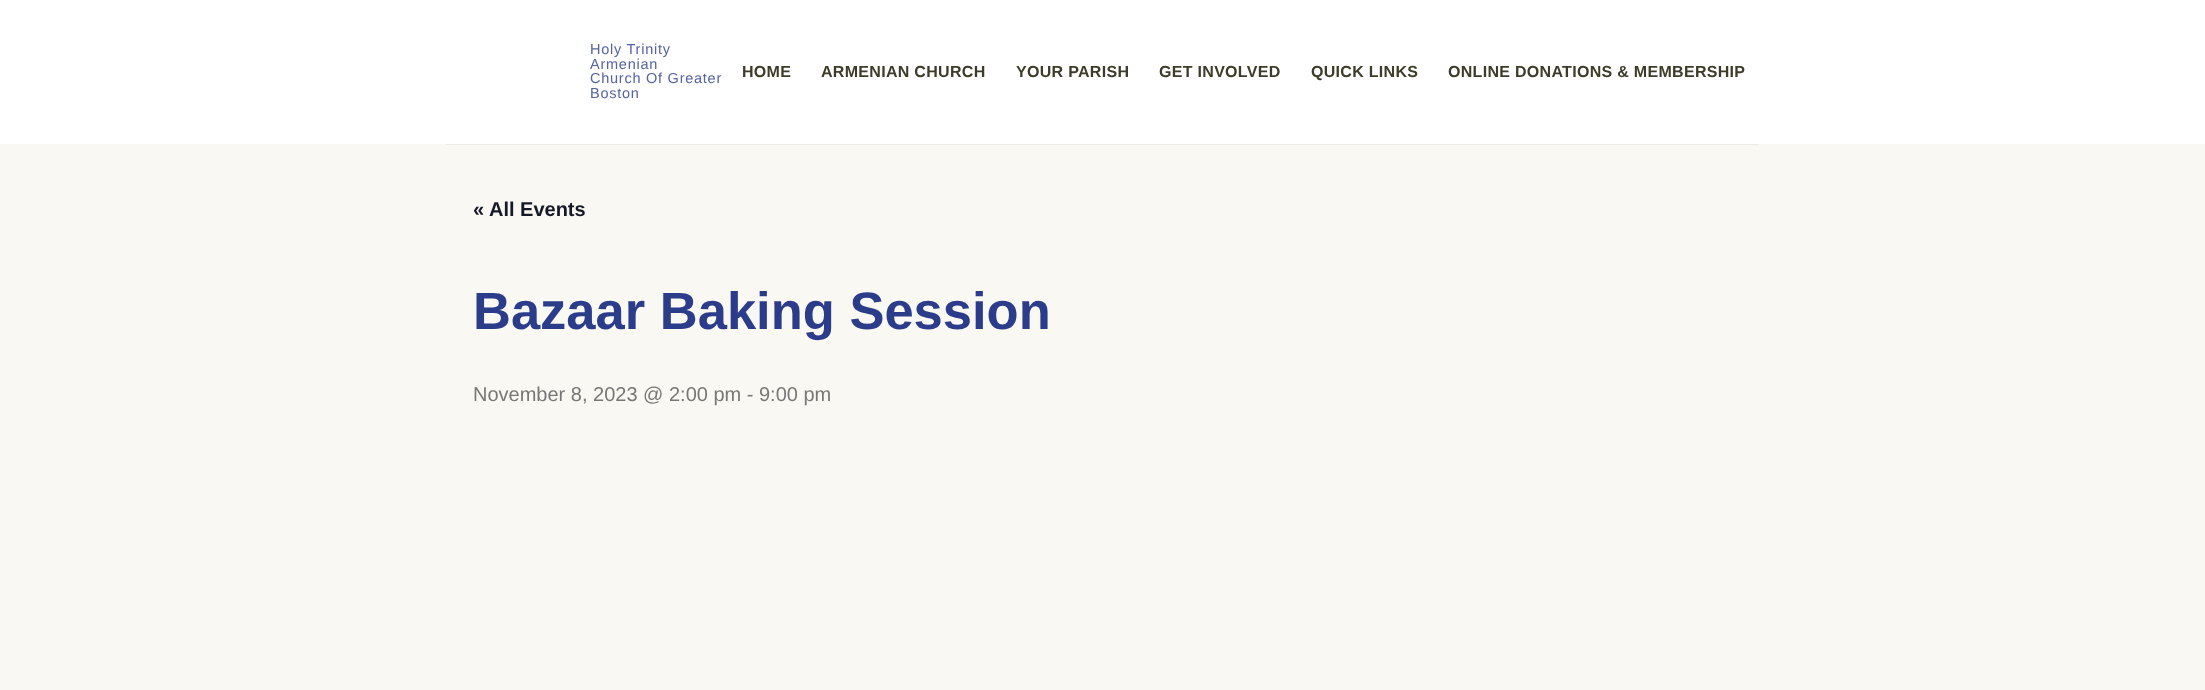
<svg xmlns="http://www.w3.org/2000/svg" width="2205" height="690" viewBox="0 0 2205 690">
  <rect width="100%" height="100%" fill="#ffffff"/>
  <text x="590" y="54" font-family="Liberation Sans" font-size="14.5" letter-spacing="0.75" fill="#5563a1">Holy Trinity</text>
  <text x="590" y="69" font-family="Liberation Sans" font-size="14.5" letter-spacing="0.75" fill="#5563a1">Armenian</text>
  <text x="590" y="83" font-family="Liberation Sans" font-size="14.5" letter-spacing="0.75" fill="#5563a1">Church Of Greater</text>
  <text x="590" y="98" font-family="Liberation Sans" font-size="14.5" letter-spacing="0.75" fill="#5563a1">Boston</text>
  <text x="742" y="77" font-family="Liberation Sans" font-size="16" font-weight="bold" letter-spacing="0.3" fill="#3d3b29">HOME</text>
  <text x="821" y="77" font-family="Liberation Sans" font-size="16" font-weight="bold" letter-spacing="0.3" fill="#3d3b29">ARMENIAN CHURCH</text>
  <text x="1016" y="77" font-family="Liberation Sans" font-size="16" font-weight="bold" letter-spacing="0.3" fill="#3d3b29">YOUR PARISH</text>
  <text x="1159" y="77" font-family="Liberation Sans" font-size="16" font-weight="bold" letter-spacing="0.3" fill="#3d3b29">GET INVOLVED</text>
  <text x="1311" y="77" font-family="Liberation Sans" font-size="16" font-weight="bold" letter-spacing="0.3" fill="#3d3b29">QUICK LINKS</text>
  <text x="1448" y="77" font-family="Liberation Sans" font-size="16" font-weight="bold" letter-spacing="0.3" fill="#3d3b29">ONLINE DONATIONS &amp; MEMBERSHIP</text>
  <rect x="0" y="144" width="2205" height="546" fill="#faf8f2"/>
  <rect x="446" y="144" width="1313" height="1" fill="#edebe6"/>
  <text x="473" y="216" font-family="Liberation Sans" font-size="20" font-weight="bold" fill="#141827">« All Events</text>
  <text x="473" y="329" font-family="Liberation Sans" font-size="52.5" font-weight="bold" fill="#2b3c8a">Bazaar Baking Session</text>
  <text x="473" y="401" font-family="Liberation Sans" font-size="20" fill="#777777">November 8, 2023 @ 2:00 pm - 9:00 pm</text>
</svg>
